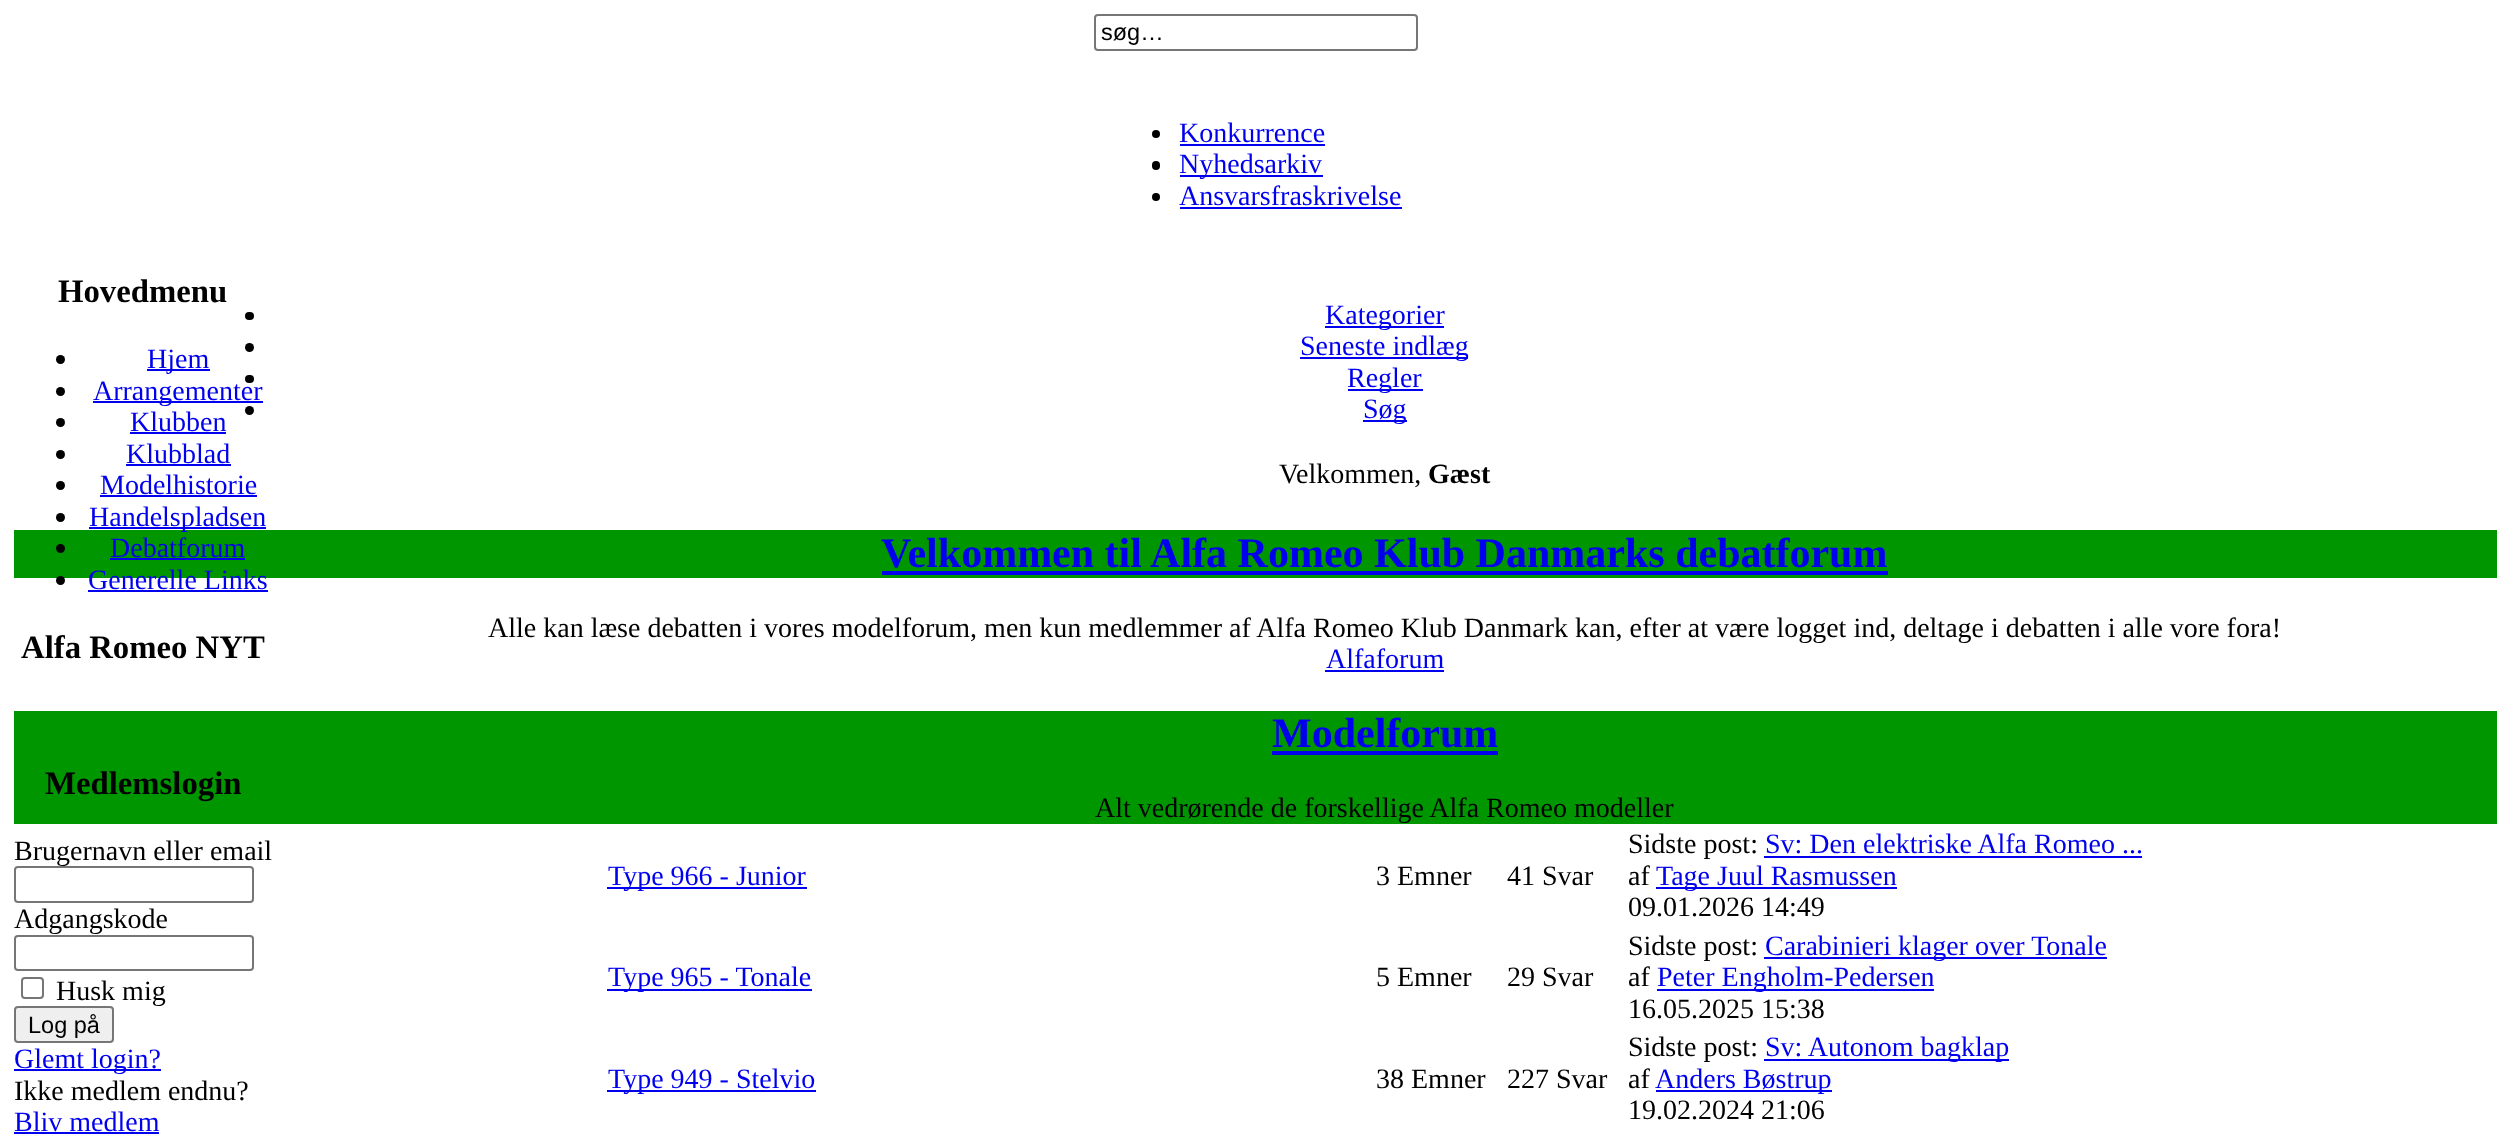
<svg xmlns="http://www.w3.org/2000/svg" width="2510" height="1137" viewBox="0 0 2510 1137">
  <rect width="100%" height="100%" fill="#ffffff"/>
  <rect x="1095" y="15" width="322" height="35" rx="3" fill="none" stroke="#767676" stroke-width="2"/>
  <text x="1101" y="40" font-family="Liberation Sans" font-size="23.5" fill="#000000">søg…</text>
  <circle cx="1156" cy="134" r="4" fill="#000000"/>
  <text x="1179" y="142" font-family="Liberation Serif" font-size="28" fill="#0000ee">Konkurrence</text>
  <rect x="1180" y="144" width="145" height="2" fill="#0000ee"/>
  <rect x="1152" y="161" width="8" height="9" rx="4" fill="#000000"/>
  <rect x="1180" y="175" width="143" height="2" fill="#0000ee"/>
  <text x="1179" y="173" font-family="Liberation Serif" font-size="28" fill="#0000ee">Nyhedsarkiv</text>
  <circle cx="1156" cy="197" r="4" fill="#000000"/>
  <text x="1179" y="205" font-family="Liberation Serif" font-size="28" fill="#0000ee">Ansvarsfraskrivelse</text>
  <rect x="1180" y="207" width="222" height="2" fill="#0000ee"/>
  <text x="58" y="302" font-family="Liberation Serif" font-size="32.75" font-weight="bold" fill="#000000">Hovedmenu</text>
  <circle cx="60.5" cy="359.5" r="4.5" fill="#000000"/>
  <rect x="147" y="369" width="63" height="2" fill="#0000ee"/>
  <text x="147" y="368" font-family="Liberation Serif" font-size="28" fill="#0000ee">Hjem</text>
  <circle cx="60.5" cy="391.5" r="4.5" fill="#000000"/>
  <rect x="93" y="401" width="170" height="2" fill="#0000ee"/>
  <text x="93" y="400" font-family="Liberation Serif" font-size="28" fill="#0000ee">Arrangementer</text>
  <circle cx="60.5" cy="422.5" r="4.5" fill="#000000"/>
  <text x="130" y="431" font-family="Liberation Serif" font-size="28" fill="#0000ee">Klubben</text>
  <rect x="130" y="432" width="96" height="2" fill="#0000ee"/>
  <circle cx="60.5" cy="454.5" r="4.5" fill="#000000"/>
  <text x="126" y="463" font-family="Liberation Serif" font-size="28" fill="#0000ee">Klubblad</text>
  <rect x="126" y="464" width="105" height="2" fill="#0000ee"/>
  <circle cx="60.5" cy="485.5" r="4.5" fill="#000000"/>
  <text x="100" y="494" font-family="Liberation Serif" font-size="28" fill="#0000ee">Modelhistorie</text>
  <rect x="100" y="495" width="157" height="2" fill="#0000ee"/>
  <circle cx="60.5" cy="517.5" r="4.5" fill="#000000"/>
  <rect x="89" y="527" width="177" height="2" fill="#0000ee"/>
  <rect x="14" y="530" width="2483" height="48" fill="#009600"/>
  <text x="89" y="526" font-family="Liberation Serif" font-size="28" fill="#0000ee">Handelspladsen</text>
  <circle cx="60.5" cy="548.5" r="4.5" fill="#000000"/>
  <text x="110" y="557" font-family="Liberation Serif" font-size="28" fill="#0000ee">Debatforum</text>
  <rect x="110" y="558" width="135" height="2" fill="#0000ee"/>
  <circle cx="60.5" cy="580.5" r="4.5" fill="#000000"/>
  <text x="88" y="589" font-family="Liberation Serif" font-size="28" fill="#0000ee">Generelle Links</text>
  <rect x="88" y="590" width="180" height="2" fill="#0000ee"/>
  <text x="21" y="658" font-family="Liberation Serif" font-size="32.75" font-weight="bold" fill="#000000">Alfa Romeo NYT</text>
  <rect x="14" y="711" width="2483" height="113" fill="#009600"/>
  <text x="45" y="794" font-family="Liberation Serif" font-size="32.75" font-weight="bold" fill="#000000">Medlemslogin</text>
  <text x="14" y="860" font-family="Liberation Serif" font-size="28" fill="#000000">Brugernavn eller email</text>
  <rect x="15" y="867" width="238" height="35" rx="3" fill="#ffffff" stroke="#767676" stroke-width="2"/>
  <text x="14" y="928" font-family="Liberation Serif" font-size="28" fill="#000000">Adgangskode</text>
  <rect x="15" y="936" width="238" height="34" rx="3" fill="none" stroke="#767676" stroke-width="2"/>
  <rect x="22" y="978" width="21" height="20" rx="3" fill="none" stroke="#767676" stroke-width="2"/>
  <text x="56" y="1000" font-family="Liberation Serif" font-size="28" fill="#000000">Husk mig</text>
  <rect x="15" y="1007" width="98" height="35" rx="3" fill="#efefef" stroke="#767676" stroke-width="2"/>
  <text x="28" y="1033" font-family="Liberation Sans" font-size="23.5" fill="#000000">Log på</text>
  <rect x="14" y="1069" width="147" height="2" fill="#0000ee"/>
  <text x="14" y="1068" font-family="Liberation Serif" font-size="28" fill="#0000ee">Glemt login?</text>
  <text x="14" y="1100" font-family="Liberation Serif" font-size="28" fill="#000000">Ikke medlem endnu?</text>
  <text x="14" y="1131" font-family="Liberation Serif" font-size="28" fill="#0000ee">Bliv medlem</text>
  <rect x="14" y="1132" width="145" height="2" fill="#0000ee"/>
  <rect x="245" y="312" width="9" height="8" rx="4" fill="#000000"/>
  <rect x="1325" y="326" width="119" height="2" fill="#0000ee"/>
  <text x="1325" y="324" font-family="Liberation Serif" font-size="28" fill="#0000ee">Kategorier</text>
  <circle cx="249.5" cy="347.5" r="4.5" fill="#000000"/>
  <rect x="1300" y="357" width="168" height="2" fill="#0000ee"/>
  <text x="1300" y="355" font-family="Liberation Serif" font-size="28" fill="#0000ee">Seneste indlæg</text>
  <rect x="245" y="375" width="9" height="8" rx="4" fill="#000000"/>
  <rect x="1348" y="389" width="75" height="2" fill="#0000ee"/>
  <text x="1347" y="387" font-family="Liberation Serif" font-size="28" fill="#0000ee">Regler</text>
  <circle cx="249.5" cy="410.5" r="4.5" fill="#000000"/>
  <rect x="1363" y="420" width="44" height="2" fill="#0000ee"/>
  <text x="1363" y="418" font-family="Liberation Serif" font-size="28" fill="#0000ee">Søg</text>
  <text x="1279" y="483" font-family="Liberation Serif" font-size="28" fill="#000000">Velkommen,</text>
  <text x="1428" y="483" font-family="Liberation Serif" font-size="28" font-weight="bold" fill="#000000">Gæst</text>
  <text x="881" y="567" font-family="Liberation Serif" font-size="42" font-weight="bold" fill="#0000ee">Velkommen til Alfa Romeo Klub Danmarks debatforum</text>
  <rect x="882" y="571" width="1006" height="4" fill="#0000ee"/>
  <text x="488" y="637" font-family="Liberation Serif" font-size="28" fill="#000000">Alle kan læse debatten i vores modelforum, men kun medlemmer af Alfa Romeo Klub Danmark kan, efter at være logget ind, deltage i debatten i alle vore fora!</text>
  <text x="1326" y="668" font-family="Liberation Serif" font-size="28" fill="#0000ee">Alfaforum</text>
  <rect x="1325" y="670" width="119" height="2" fill="#0000ee"/>
  <text x="1272" y="747" font-family="Liberation Serif" font-size="42" font-weight="bold" fill="#0000ee">Modelforum</text>
  <rect x="1272" y="751" width="226" height="4" fill="#0000ee"/>
  <text x="1095" y="817" font-family="Liberation Serif" font-size="28" fill="#000000">Alt vedrørende de forskellige Alfa Romeo modeller</text>
  <rect x="607" y="887" width="200" height="2" fill="#0000ee"/>
  <text x="608" y="885" font-family="Liberation Serif" font-size="28" fill="#0000ee">Type 966 - Junior</text>
  <text x="1376" y="885" font-family="Liberation Serif" font-size="28" fill="#000000">3 Emner</text>
  <text x="1507" y="885" font-family="Liberation Serif" font-size="28" fill="#000000">41 Svar</text>
  <text x="1628" y="853" font-family="Liberation Serif" font-size="28" fill="#000000">Sidste post:</text>
  <text x="1765" y="853" font-family="Liberation Serif" font-size="28" fill="#0000ee">Sv: Den elektriske Alfa Romeo ...</text>
  <rect x="1764" y="856" width="378" height="2" fill="#0000ee"/>
  <text x="1628" y="885" font-family="Liberation Serif" font-size="28" fill="#000000">af</text>
  <rect x="1656" y="887" width="241" height="2" fill="#0000ee"/>
  <text x="1656" y="885" font-family="Liberation Serif" font-size="28" fill="#0000ee">Tage Juul Rasmussen</text>
  <text x="1628" y="916" font-family="Liberation Serif" font-size="28" fill="#000000">09.01.2026 14:49</text>
  <rect x="607" y="989" width="205" height="2" fill="#0000ee"/>
  <text x="608" y="986" font-family="Liberation Serif" font-size="28" fill="#0000ee">Type 965 - Tonale</text>
  <text x="1376" y="986" font-family="Liberation Serif" font-size="28" fill="#000000">5 Emner</text>
  <text x="1507" y="986" font-family="Liberation Serif" font-size="28" fill="#000000">29 Svar</text>
  <text x="1628" y="955" font-family="Liberation Serif" font-size="28" fill="#000000">Sidste post:</text>
  <rect x="1764" y="957" width="343" height="2" fill="#0000ee"/>
  <text x="1765" y="955" font-family="Liberation Serif" font-size="28" fill="#0000ee">Carabinieri klager over Tonale</text>
  <text x="1628" y="986" font-family="Liberation Serif" font-size="28" fill="#000000">af</text>
  <rect x="1657" y="989" width="277" height="2" fill="#0000ee"/>
  <text x="1657" y="986" font-family="Liberation Serif" font-size="28" fill="#0000ee">Peter Engholm-Pedersen</text>
  <text x="1628" y="1018" font-family="Liberation Serif" font-size="28" fill="#000000">16.05.2025 15:38</text>
  <rect x="607" y="1090" width="209" height="2" fill="#0000ee"/>
  <text x="608" y="1088" font-family="Liberation Serif" font-size="28" fill="#0000ee">Type 949 - Stelvio</text>
  <text x="1376" y="1088" font-family="Liberation Serif" font-size="28" fill="#000000">38 Emner</text>
  <text x="1507" y="1088" font-family="Liberation Serif" font-size="28" fill="#000000">227 Svar</text>
  <text x="1628" y="1056" font-family="Liberation Serif" font-size="28" fill="#000000">Sidste post:</text>
  <rect x="1764" y="1059" width="245" height="2" fill="#0000ee"/>
  <text x="1765" y="1056" font-family="Liberation Serif" font-size="28" fill="#0000ee">Sv: Autonom bagklap</text>
  <text x="1628" y="1088" font-family="Liberation Serif" font-size="28" fill="#000000">af</text>
  <rect x="1656" y="1090" width="176" height="2" fill="#0000ee"/>
  <text x="1655" y="1088" font-family="Liberation Serif" font-size="28" fill="#0000ee">Anders Bøstrup</text>
  <text x="1628" y="1119" font-family="Liberation Serif" font-size="28" fill="#000000">19.02.2024 21:06</text>
</svg>
